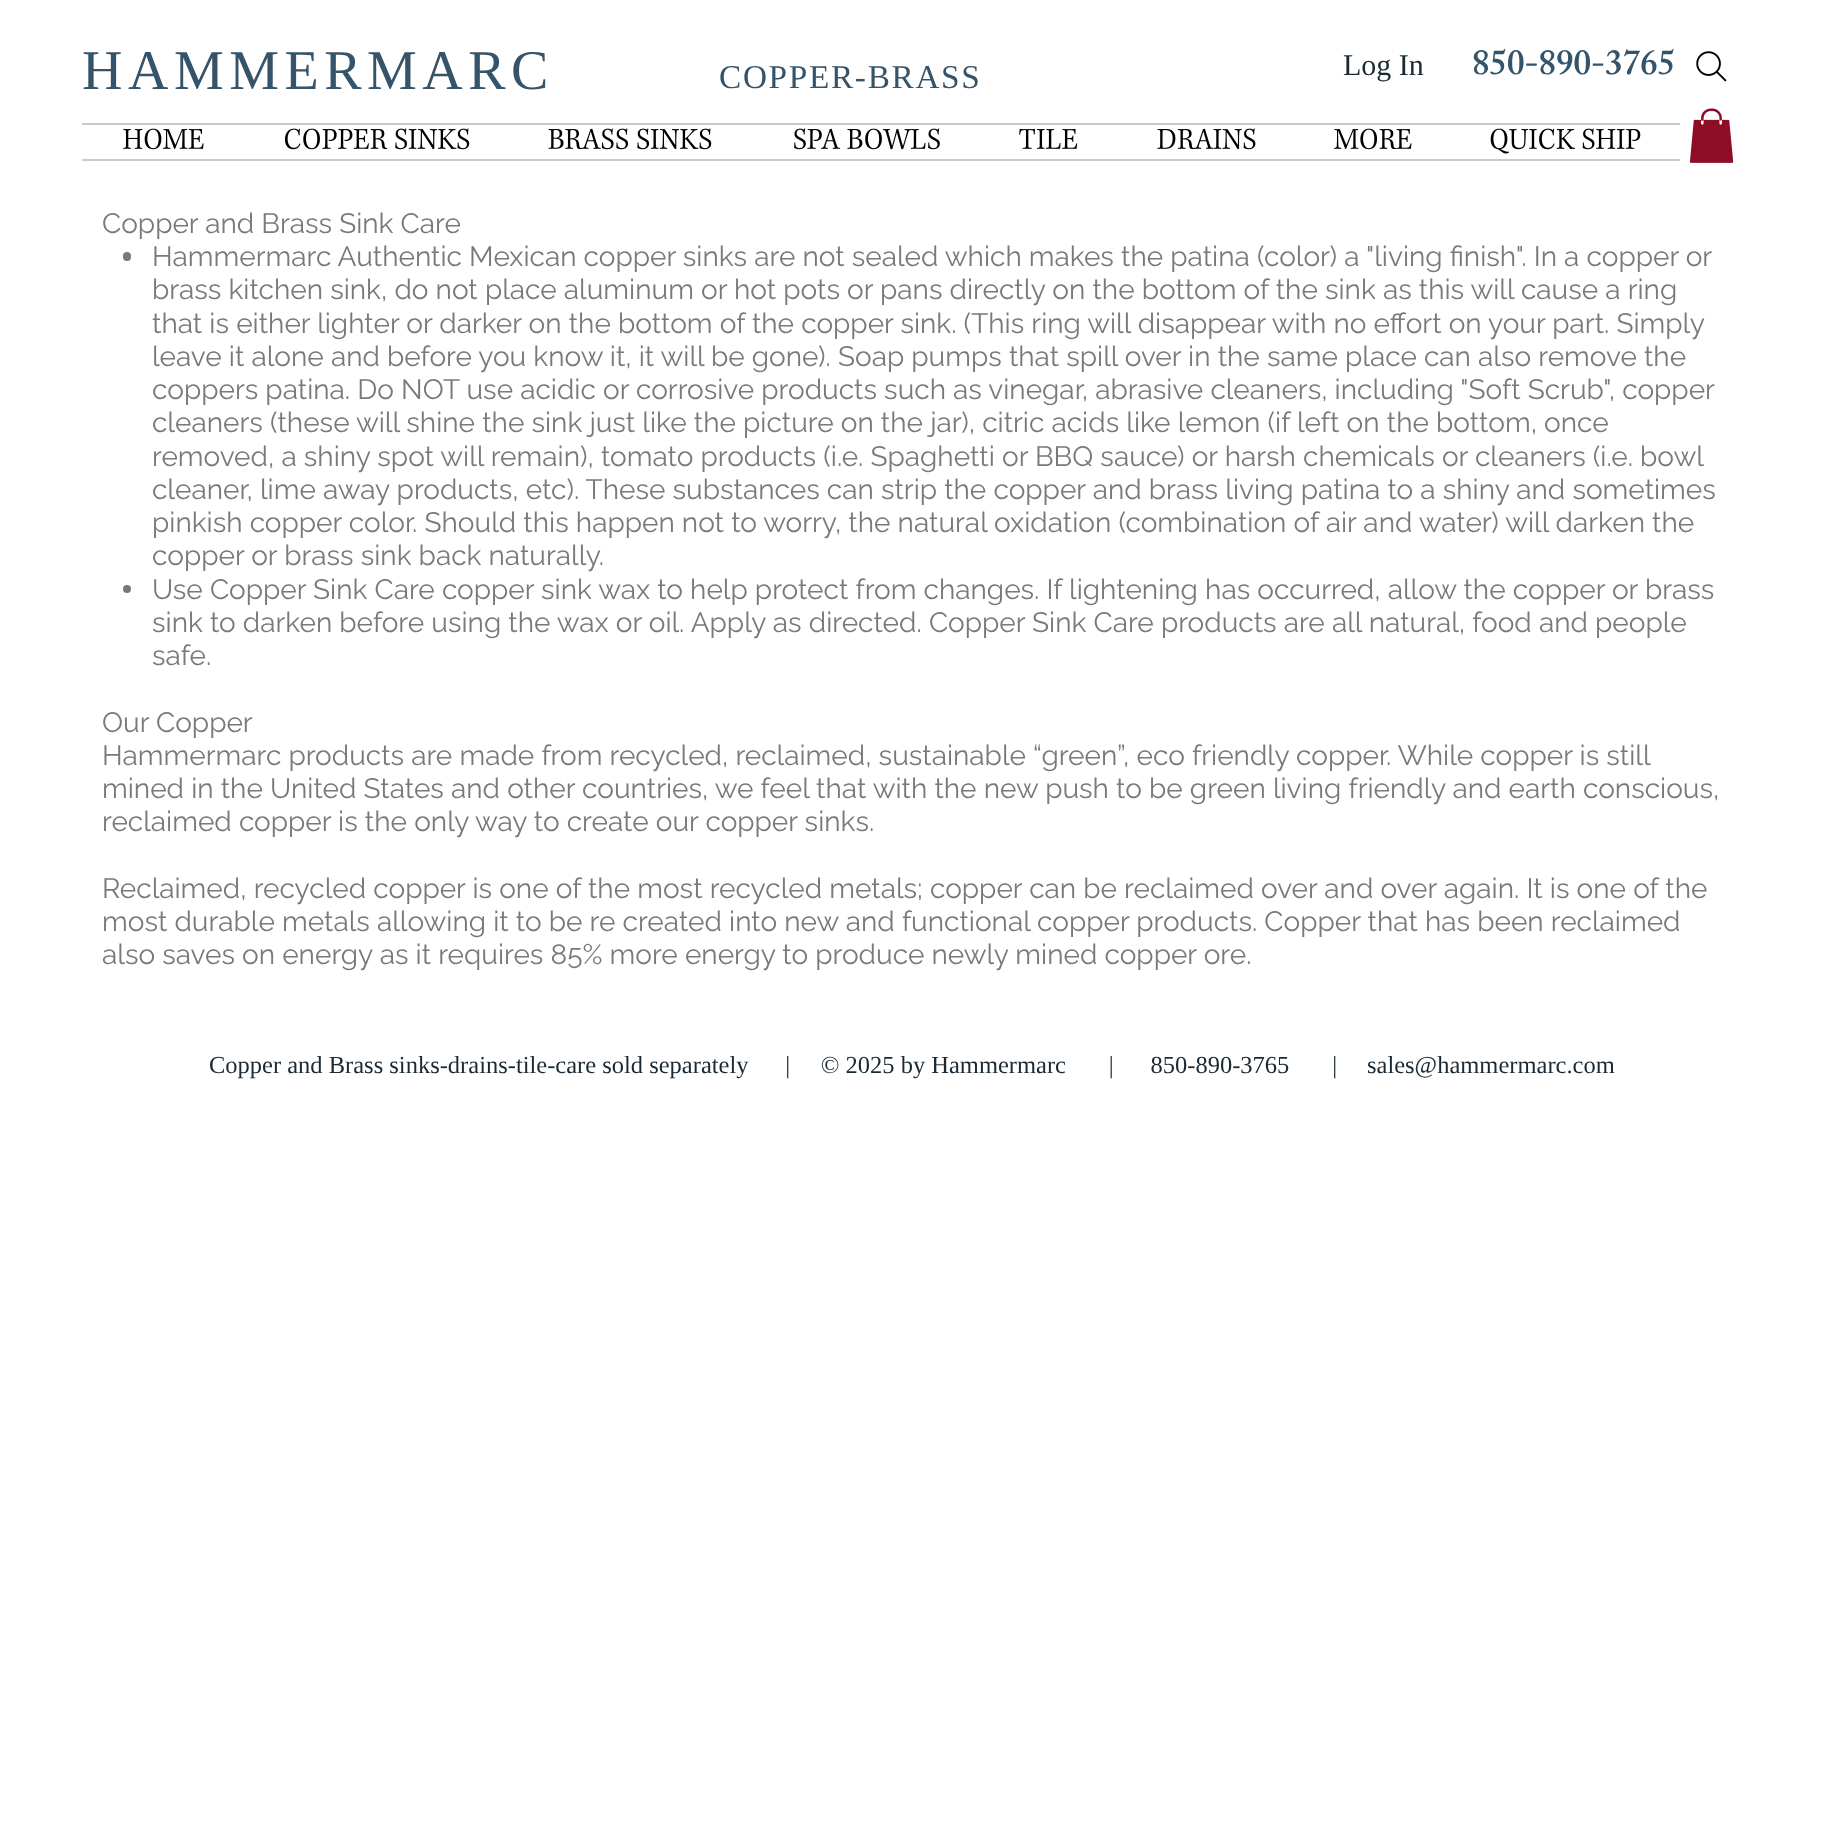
<svg xmlns="http://www.w3.org/2000/svg" width="1823" height="1835" viewBox="0 0 1823 1835">
  <rect width="100%" height="100%" fill="#ffffff"/>
  <text x="82" y="89" font-family="Liberation Serif" font-size="56" letter-spacing="5.5" fill="#355369">HAMMERMARC</text>
  <text x="719" y="88" font-family="Liberation Serif" font-size="33.25" letter-spacing="1.7" fill="#355369">COPPER-BRASS</text>
  <text x="1343" y="75" font-family="Liberation Serif" font-size="30" fill="#1a2a35">Log In</text>
  <text x="1472" y="74" font-family="'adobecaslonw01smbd'" font-size="35" font-weight="600" fill="#355369">850-890-3765</text>
  <image x="1696" y="51" width="31" height="31" href="img1.png"/>
  <rect x="82" y="123" width="1598" height="2" fill="#cacaca"/>
  <rect x="82" y="159" width="1598" height="2" fill="#cacaca"/>
  <image x="123" y="128" width="81" height="22" href="img2.png"/>
  <image x="284" y="128" width="186" height="22" href="img3.png"/>
  <image x="548" y="128" width="164" height="22" href="img4.png"/>
  <image x="794" y="128" width="146" height="22" href="img5.png"/>
  <image x="1019" y="128" width="59" height="21" href="img6.png"/>
  <image x="1157" y="128" width="99" height="22" href="img7.png"/>
  <image x="1334" y="128" width="78" height="22" href="img8.png"/>
  <image x="1490" y="128" width="151" height="26" href="img9.png"/>
  <image x="1689" y="108" width="45" height="55" href="img10.png"/>
  <text x="102" y="233" font-family="Raleway" font-size="28" fill="#7a7979">Copper and Brass Sink Care</text>
  <rect x="123" y="252" width="8" height="9" rx="4" fill="#7a7979"/>
  <text x="152" y="266" font-family="Raleway" font-size="28" fill="#7a7979">Hammermarc Authentic Mexican copper sinks are not sealed which makes the patina (color) a "living finish". In a copper or</text>
  <text x="152" y="299" font-family="Raleway" font-size="28" fill="#7a7979">brass kitchen sink, do not place aluminum or hot pots or pans directly on the bottom of the sink as this will cause a ring</text>
  <text x="152" y="333" font-family="Raleway" font-size="28" fill="#7a7979">that is either lighter or darker on the bottom of the copper sink. (This ring will disappear with no effort on your part. Simply</text>
  <text x="152" y="366" font-family="Raleway" font-size="28" fill="#7a7979">leave it alone and before you know it, it will be gone). Soap pumps that spill over in the same place can also remove the</text>
  <text x="152" y="399" font-family="Raleway" font-size="28" fill="#7a7979">coppers patina. Do NOT use acidic or corrosive products such as vinegar, abrasive cleaners, including "Soft Scrub", copper</text>
  <text x="152" y="432" font-family="Raleway" font-size="28" fill="#7a7979">cleaners (these will shine the sink just like the picture on the jar), citric acids like lemon (if left on the bottom, once</text>
  <text x="152" y="466" font-family="Raleway" font-size="28" fill="#7a7979">removed, a shiny spot will remain), tomato products (i.e. Spaghetti or BBQ sauce) or harsh chemicals or cleaners (i.e. bowl</text>
  <text x="152" y="499" font-family="Raleway" font-size="28" fill="#7a7979">cleaner, lime away products, etc). These substances can strip the copper and brass living patina to a shiny and sometimes</text>
  <text x="152" y="532" font-family="Raleway" font-size="28" fill="#7a7979">pinkish copper color. Should this happen not to worry, the natural oxidation (combination of air and water) will darken the</text>
  <text x="152" y="565" font-family="Raleway" font-size="28" fill="#7a7979">copper or brass sink back naturally.</text>
  <circle cx="127" cy="589" r="4" fill="#7a7979"/>
  <text x="152" y="599" font-family="Raleway" font-size="28" fill="#7a7979">Use Copper Sink Care copper sink wax to help protect from changes. If lightening has occurred, allow the copper or brass</text>
  <text x="152" y="632" font-family="Raleway" font-size="28" fill="#7a7979">sink to darken before using the wax or oil. Apply as directed. Copper Sink Care products are all natural, food and people</text>
  <text x="152" y="665" font-family="Raleway" font-size="28" fill="#7a7979">safe.</text>
  <text x="102" y="732" font-family="Raleway" font-size="28" fill="#7a7979">Our Copper</text>
  <text x="102" y="765" font-family="Raleway" font-size="28" fill="#7a7979">Hammermarc products are made from recycled, reclaimed, sustainable “green”, eco friendly copper. While copper is still</text>
  <text x="102" y="798" font-family="Raleway" font-size="28" fill="#7a7979">mined in the United States and other countries, we feel that with the new push to be green living friendly and earth conscious,</text>
  <text x="102" y="831" font-family="Raleway" font-size="28" fill="#7a7979">reclaimed copper is the only way to create our copper sinks.</text>
  <text x="102" y="898" font-family="Raleway" font-size="28" fill="#7a7979">Reclaimed, recycled copper is one of the most recycled metals; copper can be reclaimed over and over again. It is one of the</text>
  <text x="102" y="931" font-family="Raleway" font-size="28" fill="#7a7979">most durable metals allowing it to be re created into new and functional copper products. Copper that has been reclaimed</text>
  <text x="102" y="964" font-family="Raleway" font-size="28" fill="#7a7979">also saves on energy as it requires 85% more energy to produce newly mined copper ore.</text>
  <text x="209" y="1073" font-family="Liberation Serif" font-size="24.5" fill="#1a2a35" xml:space="preserve">Copper and Brass sinks-drains-tile-care sold separately      |     © 2025 by Hammermarc       |      850-890-3765       |</text>
  <text x="1367" y="1073" font-family="Liberation Serif" font-size="24.5" fill="#1a2a35">sales@hammermarc.com</text>
</svg>
